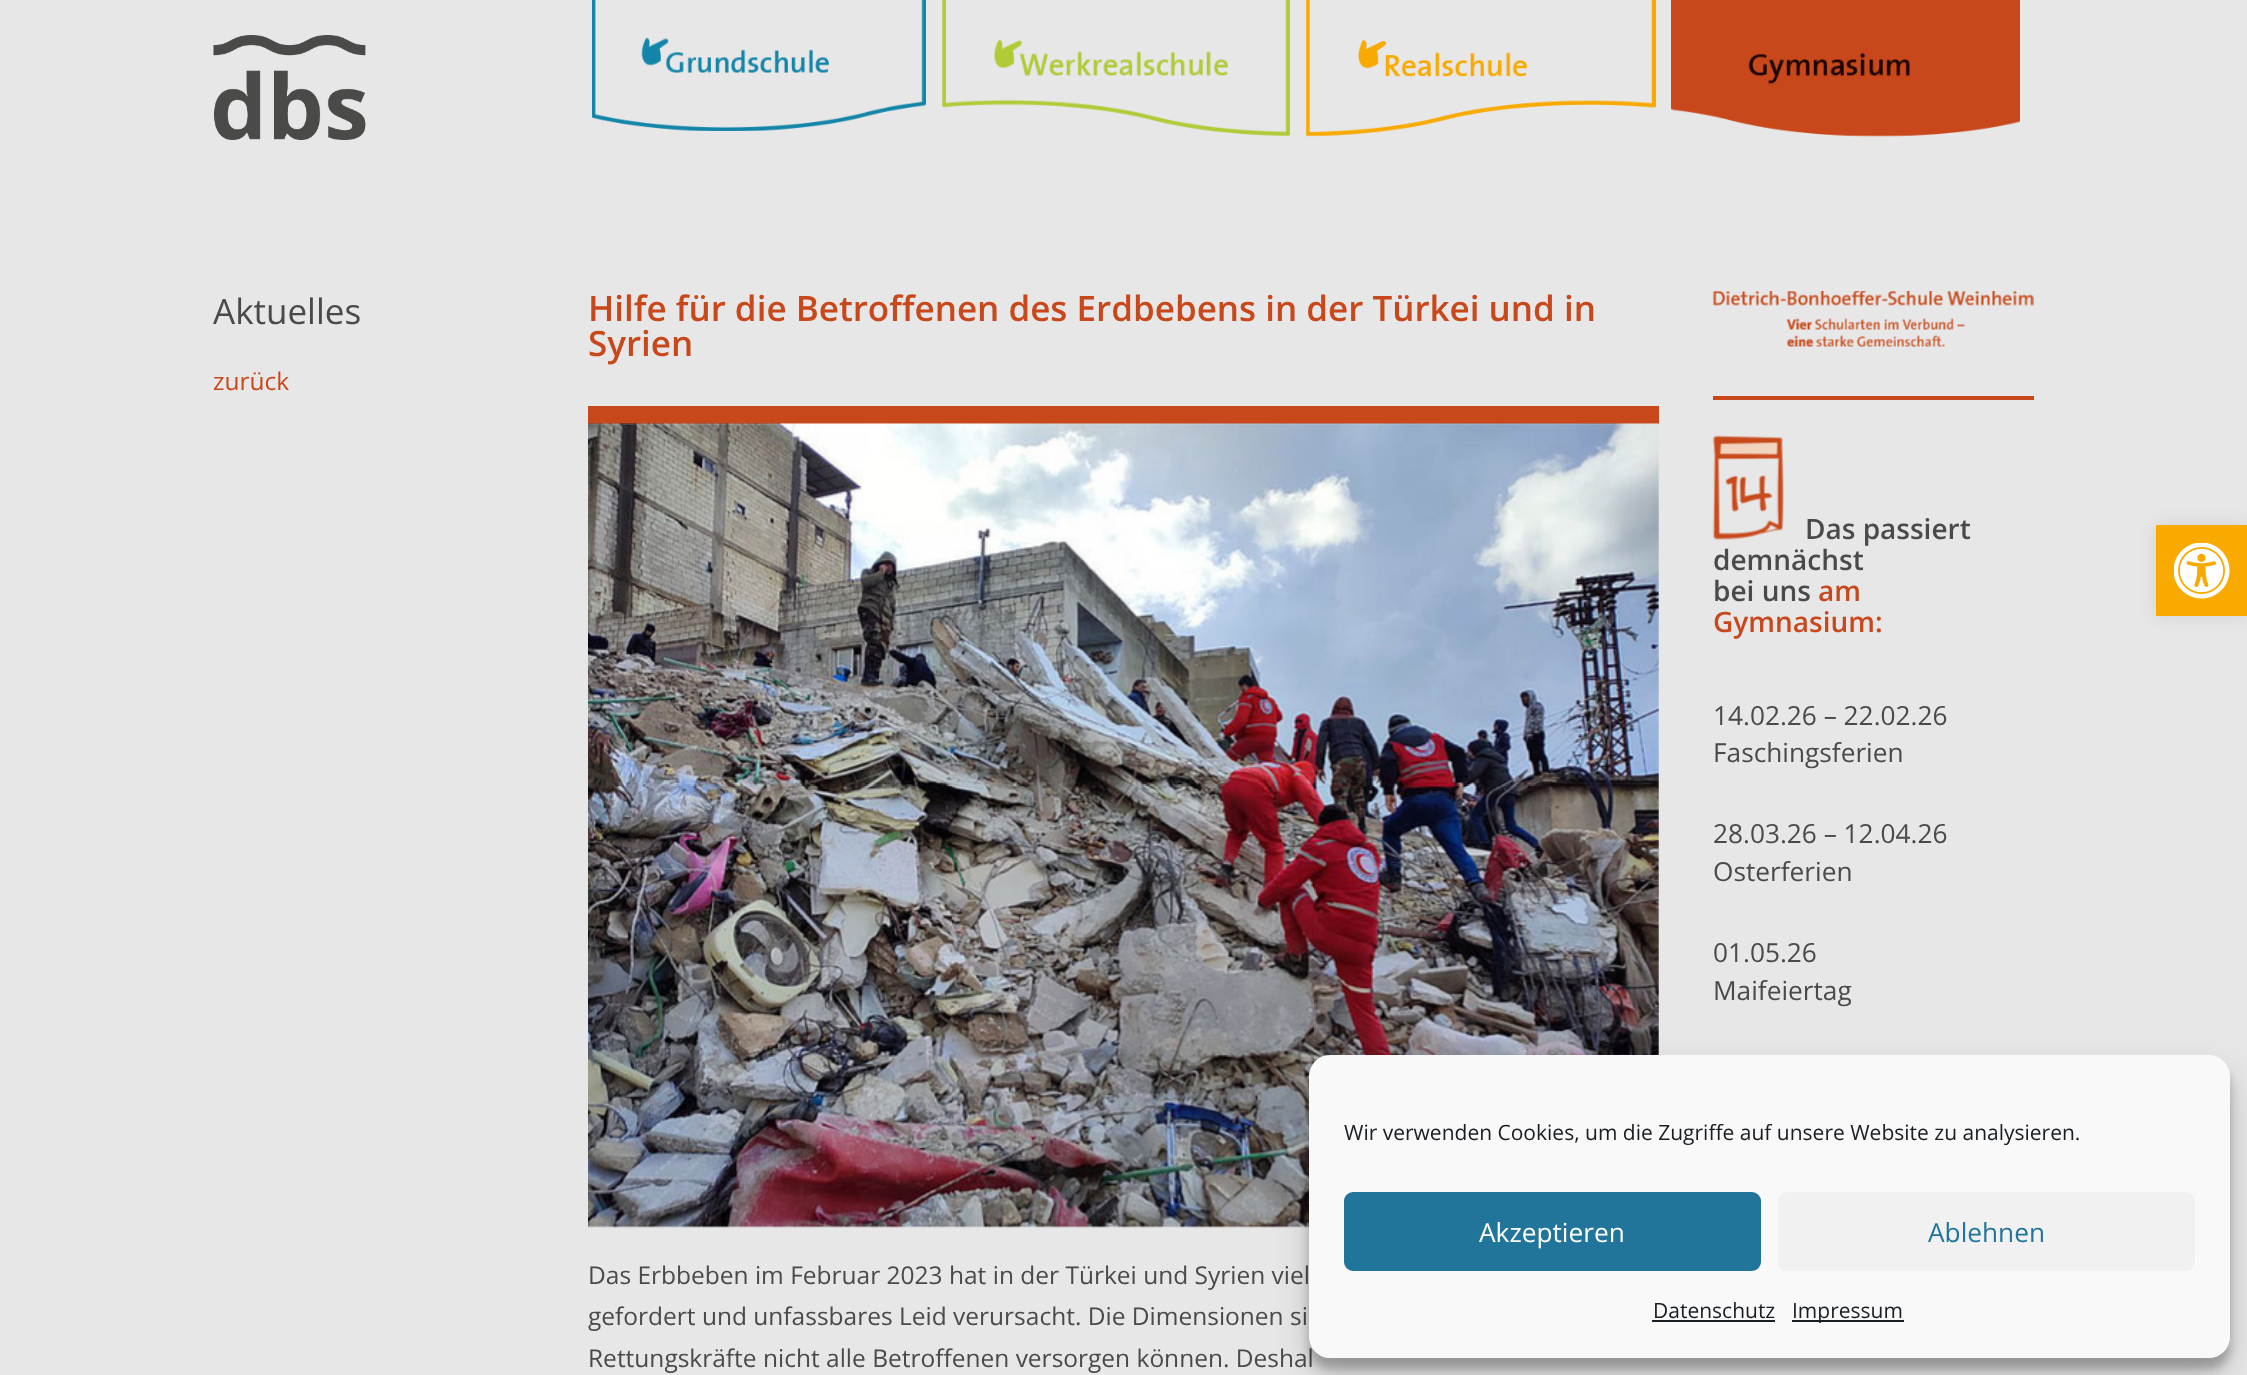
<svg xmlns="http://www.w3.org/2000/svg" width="2247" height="1375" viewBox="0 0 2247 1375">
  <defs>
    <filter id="blur1" x="-50%" y="-200%" width="200%" height="500%"><feGaussianBlur stdDeviation="9"/></filter>
    <filter id="blur2" x="-50%" y="-200%" width="200%" height="500%"><feGaussianBlur stdDeviation="5"/></filter>
    <filter id="blur3" x="-50%" y="-200%" width="200%" height="500%"><feGaussianBlur stdDeviation="17.5"/></filter>
  </defs>
  <rect width="100%" height="100%" fill="#e7e7e7"/>
  <image x="213" y="35" width="153" height="105" href="img1.png"/>
  <image x="592" y="0" width="334" height="131" href="img2.png"/>
  <image x="942" y="0" width="348" height="136" href="img3.png"/>
  <image x="1306" y="0" width="350" height="137" href="img4.png"/>
  <image x="1671" y="0" width="349" height="137" href="img5.png"/>
  <text x="213" y="324" font-family="Open Sans" font-size="35" fill="#4a4a49">Aktuelles</text>
  <text x="213" y="390" font-family="Open Sans" font-size="24.5" fill="#c9481b">zurück</text>
  <text x="588" y="321" font-family="Open Sans" font-size="35" font-weight="600" fill="#c9481b">Hilfe für die Betroffenen des Erdbebens in der Türkei und in</text>
  <text x="588" y="356" font-family="Open Sans" font-size="35" font-weight="600" fill="#c9481b">Syrien</text>
  <rect x="588" y="406" width="1071" height="18" fill="#c9481b"/>
  <image x="588" y="423" width="1071" height="805" href="img6.png"/>
  <text x="588" y="1284" font-family="Open Sans" font-size="24.5" fill="#4a4a49">Das Erbbeben im Februar 2023 hat in der Türkei und Syrien viel</text>
  <text x="588" y="1325" font-family="Open Sans" font-size="24.5" fill="#4a4a49">gefordert und unfassbares Leid verursacht. Die Dimensionen si</text>
  <text x="588" y="1367" font-family="Open Sans" font-size="24.5" fill="#4a4a49">Rettungskräfte nicht alle Betroffenen versorgen können. Deshal</text>
  <image x="1712" y="291" width="322" height="56" href="img7.png"/>
  <rect x="1713" y="396" width="321" height="4" fill="#c9481b"/>
  <image x="1712" y="435" width="72" height="105" href="img8.png"/>
  <text x="1805" y="539" font-family="Open Sans" font-size="28" font-weight="600" fill="#4a4a49">Das passiert</text>
  <text x="1713" y="570" font-family="Open Sans" font-size="28" font-weight="600" fill="#4a4a49">demnächst</text>
  <text x="1713" y="601" font-family="Open Sans" font-size="28" font-weight="600" fill="#4a4a49">bei uns</text>
  <text x="1818" y="601" font-family="Open Sans" font-size="28" font-weight="600" fill="#c9481b">am</text>
  <text x="1713" y="632" font-family="Open Sans" font-size="28" font-weight="600" fill="#c9481b">Gymnasium:</text>
  <text x="1713" y="725" font-family="Open Sans" font-size="26.25" fill="#4a4a49">14.02.26 – 22.02.26</text>
  <text x="1713" y="762" font-family="Open Sans" font-size="26.25" fill="#4a4a49">Faschingsferien</text>
  <text x="1713" y="843" font-family="Open Sans" font-size="26.25" fill="#4a4a49">28.03.26 – 12.04.26</text>
  <text x="1713" y="881" font-family="Open Sans" font-size="26.25" fill="#4a4a49">Osterferien</text>
  <text x="1713" y="962" font-family="Open Sans" font-size="26.25" fill="#4a4a49">01.05.26</text>
  <text x="1713" y="1000" font-family="Open Sans" font-size="26.25" fill="#4a4a49">Maifeiertag</text>
  <rect x="2156" y="525" width="91" height="91" fill="#000000" fill-opacity="0.1" filter="url(#blur1)"/>
  <rect x="2156" y="525" width="91" height="91" fill="#f8aa00"/>
  <image x="2174" y="543" width="56" height="56" href="img9.png"/>
  <rect x="1309" y="1066" width="921" height="303" rx="21" fill="#000000" fill-opacity="0.23" filter="url(#blur2)"/>
  <rect x="1309" y="1073" width="921" height="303" rx="21" fill="#000000" fill-opacity="0.19" filter="url(#blur3)"/>
  <rect x="1309" y="1055" width="921" height="303" rx="21" fill="#f9f9f9"/>
  <text x="1344" y="1140" font-family="Open Sans" font-size="21" fill="#191e23">Wir verwenden Cookies, um die Zugriffe auf unsere Website zu analysieren.</text>
  <rect x="1345" y="1193" width="415" height="77" rx="8" fill="#21759b" stroke="#21759b" stroke-width="2"/>
  <text x="1479" y="1242" font-family="Open Sans" font-size="26.25" fill="#ffffff">Akzeptieren</text>
  <rect x="1778" y="1192" width="417" height="79" rx="9" fill="#f1f1f1"/>
  <text x="1928" y="1242" font-family="Open Sans" font-size="26.25" fill="#21759b">Ablehnen</text>
  <text x="1653" y="1318" font-family="Open Sans" font-size="21" fill="#191e23">Datenschutz</text>
  <rect x="1652" y="1320" width="123" height="2" fill="#191e23"/>
  <rect x="1792" y="1320" width="112" height="2" fill="#191e23"/>
  <text x="1792" y="1318" font-family="Open Sans" font-size="21" fill="#191e23">Impressum</text>
</svg>
